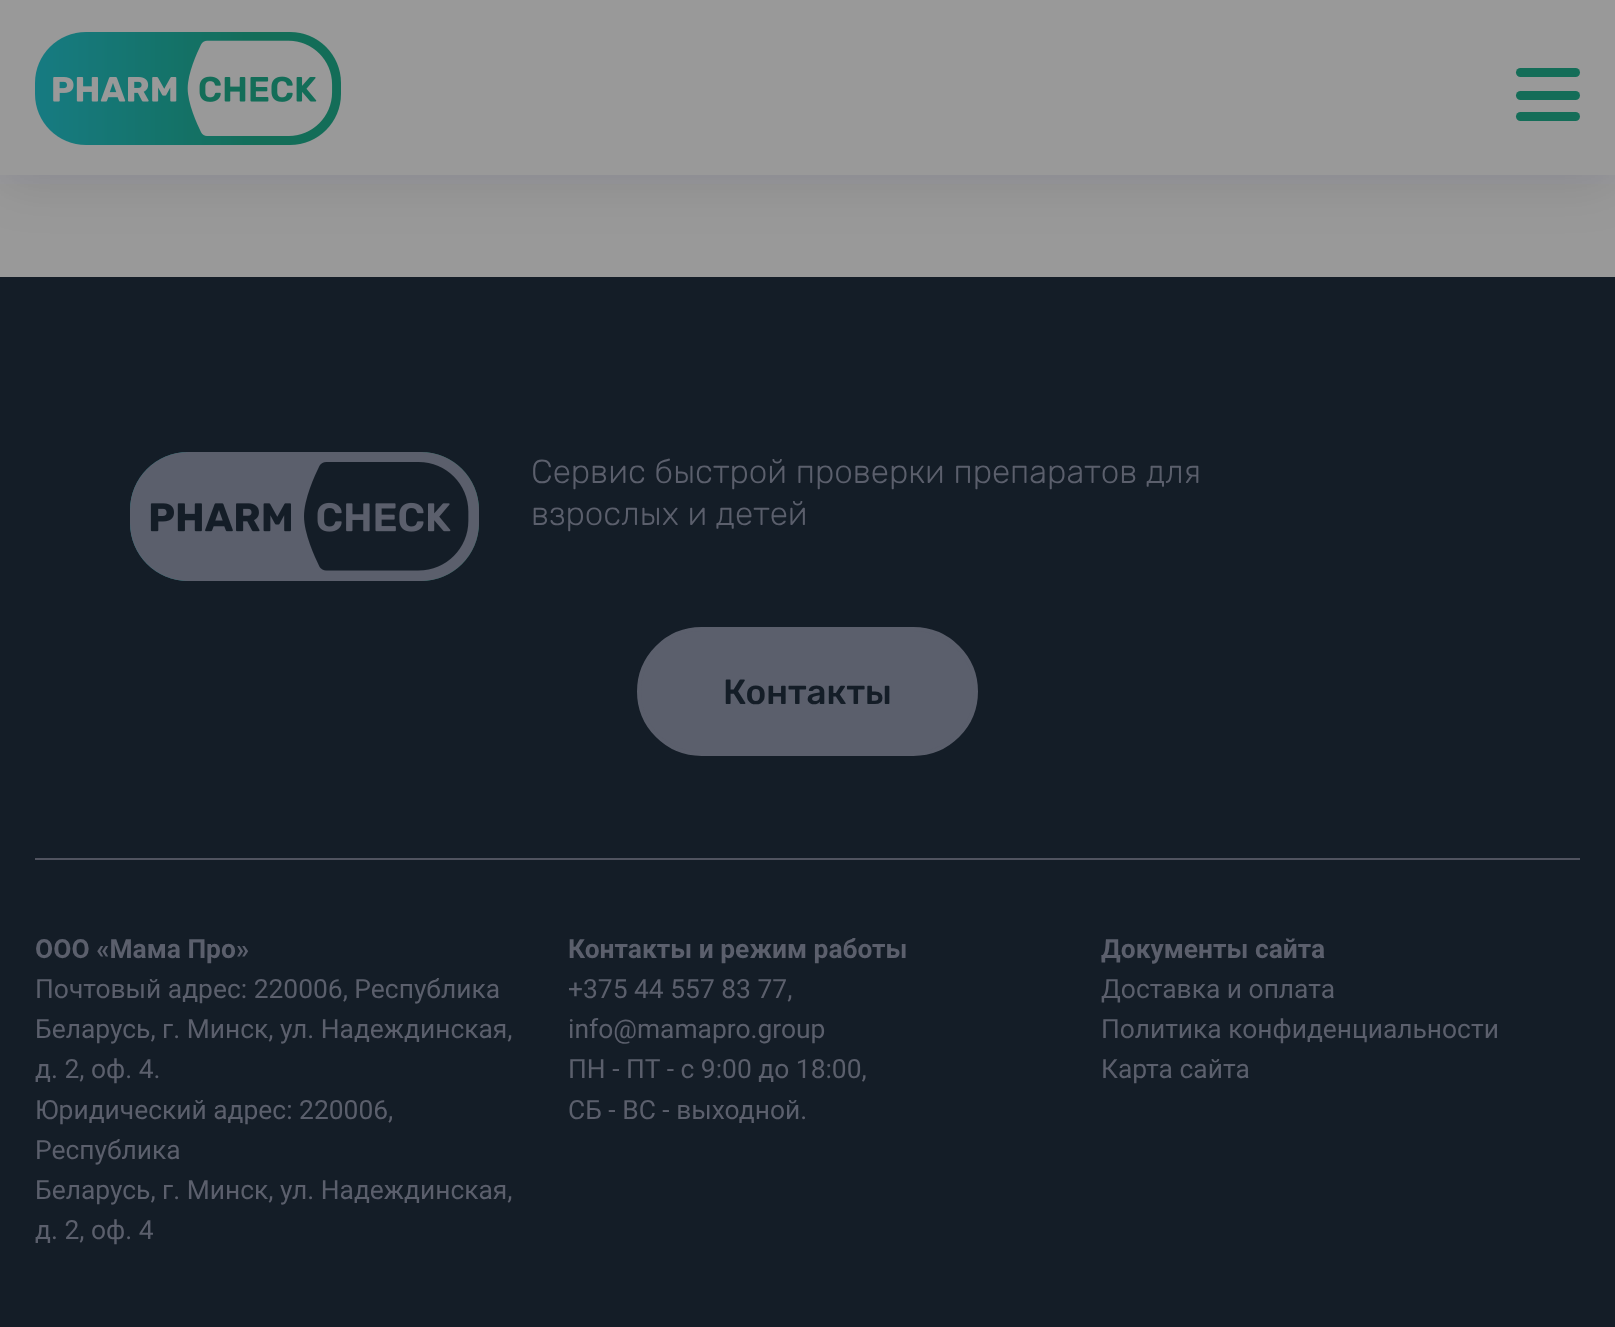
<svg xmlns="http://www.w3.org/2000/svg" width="1615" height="1327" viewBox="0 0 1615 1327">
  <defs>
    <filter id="blur1" x="-50%" y="-200%" width="200%" height="500%"><feGaussianBlur stdDeviation="26"/></filter>
  </defs>
  <rect width="100%" height="100%" fill="#999999"/>
  <rect x="0" y="9" width="1615" height="175" fill="#000d32" fill-opacity="0.1" filter="url(#blur1)"/>
  <rect x="0" y="0" width="1615" height="175" fill="#999999"/>
  <image x="35" y="32" width="306" height="113" href="img1.png"/>
  <rect x="1516" y="91" width="64" height="9" rx="4.5" fill="#146d58"/>
  <rect x="1516" y="68" width="64" height="9" rx="4.5" fill="#146d58"/>
  <rect x="1516" y="112" width="64" height="9" rx="4.5" fill="#146d58"/>
  <rect x="0" y="277" width="1615" height="1050" fill="#141d27"/>
  <rect x="35" y="858" width="1545" height="2" fill="#50535f"/>
  <image x="130" y="452" width="349" height="129" href="img2.png"/>
  <text x="531" y="483" font-family="Rubik" font-size="33.25" font-weight="300" fill="#5b5f6c">Сервис быстрой проверки препаратов для</text>
  <text x="531" y="525" font-family="Rubik" font-size="33.25" font-weight="300" fill="#5b5f6c">взрослых и детей</text>
  <rect x="639" y="629" width="337" height="125" rx="62.5" fill="#5b5f6c" stroke="#5b5f6c" stroke-width="4"/>
  <text x="723" y="704" font-family="Rubik" font-size="35" font-weight="500" fill="#141d27">Контакты</text>
  <text x="35" y="958" font-family="Roboto" font-size="26.4" font-weight="bold" fill="#5b5f6c">ООО «Мама Про»</text>
  <text x="35" y="998" font-family="Roboto" font-size="26.4" fill="#5b5f6c">Почтовый адрес: 220006, Республика</text>
  <text x="35" y="1038" font-family="Roboto" font-size="26.4" fill="#5b5f6c">Беларусь, г. Минск, ул. Надеждинская,</text>
  <text x="35" y="1078" font-family="Roboto" font-size="26.4" fill="#5b5f6c">д. 2, оф. 4.</text>
  <text x="35" y="1119" font-family="Roboto" font-size="26.4" fill="#5b5f6c">Юридический адрес: 220006,</text>
  <text x="35" y="1159" font-family="Roboto" font-size="26.4" fill="#5b5f6c">Республика</text>
  <text x="35" y="1199" font-family="Roboto" font-size="26.4" fill="#5b5f6c">Беларусь, г. Минск, ул. Надеждинская,</text>
  <text x="35" y="1239" font-family="Roboto" font-size="26.4" fill="#5b5f6c">д. 2, оф. 4</text>
  <text x="568" y="958" font-family="Roboto" font-size="26.4" font-weight="bold" fill="#5b5f6c">Контакты и режим работы</text>
  <text x="568" y="998" font-family="Roboto" font-size="26.4" fill="#5b5f6c">+375 44 557 83 77,</text>
  <text x="568" y="1038" font-family="Roboto" font-size="26.4" fill="#5b5f6c">info@mamapro.group</text>
  <text x="568" y="1078" font-family="Roboto" font-size="26.4" fill="#5b5f6c">ПН - ПТ - c 9:00 до 18:00,</text>
  <text x="568" y="1119" font-family="Roboto" font-size="26.4" fill="#5b5f6c">СБ - ВС - выходной.</text>
  <text x="1101" y="958" font-family="Roboto" font-size="26.4" font-weight="bold" fill="#5b5f6c">Документы сайта</text>
  <text x="1101" y="998" font-family="Roboto" font-size="26.4" fill="#5b5f6c">Доставка и оплата</text>
  <text x="1101" y="1038" font-family="Roboto" font-size="26.4" fill="#5b5f6c">Политика конфиденциальности</text>
  <text x="1101" y="1078" font-family="Roboto" font-size="26.4" fill="#5b5f6c">Карта сайта</text>
</svg>
